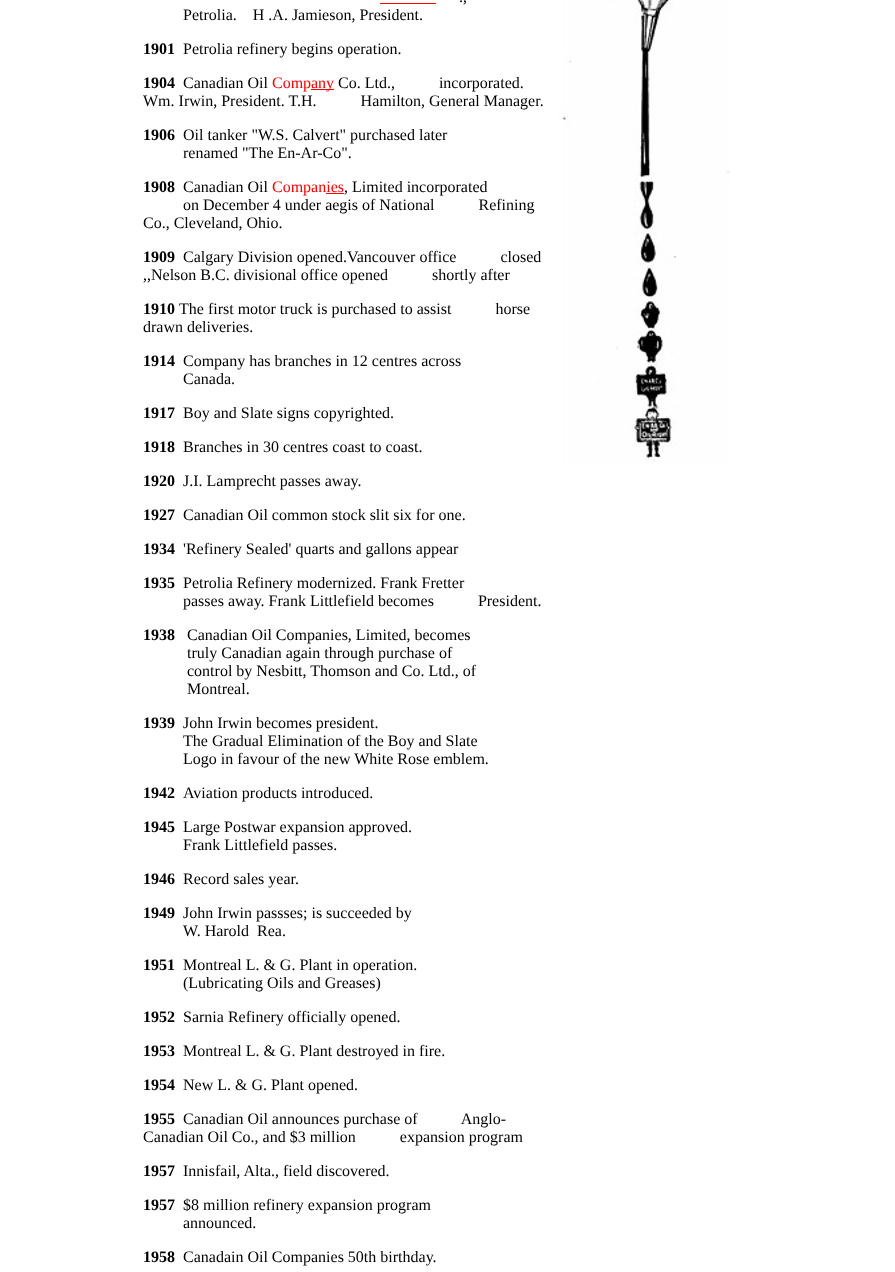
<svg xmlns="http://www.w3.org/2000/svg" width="895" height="1272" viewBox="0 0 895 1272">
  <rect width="100%" height="100%" fill="#ffffff"/>
  <rect x="380" y="3" width="56" height="1" fill="#ff0000"/>
  <text x="459" y="2" font-family="Liberation Serif" font-size="16" fill="#000000">.,</text>
  <text x="183" y="20" font-family="Liberation Serif" font-size="16" fill="#000000" xml:space="preserve">Petrolia.    H .A. Jamieson, President.</text>
  <text x="143" y="54" font-family="Liberation Serif" font-size="16" font-weight="bold" fill="#000000">1901</text>
  <text x="183" y="54" font-family="Liberation Serif" font-size="16" fill="#000000">Petrolia refinery begins operation.</text>
  <text x="143" y="88" font-family="Liberation Serif" font-size="16" font-weight="bold" fill="#000000">1904</text>
  <text x="183" y="88" font-family="Liberation Serif" font-size="16" fill="#000000">Canadian Oil</text>
  <text x="272" y="88" font-family="Liberation Serif" font-size="16" fill="#ff0000">Comp</text>
  <rect x="311" y="89" width="23" height="1" fill="#ff0000"/>
  <text x="311" y="88" font-family="Liberation Serif" font-size="16" fill="#ff0000">any</text>
  <text x="338" y="88" font-family="Liberation Serif" font-size="16" fill="#000000" xml:space="preserve">Co. Ltd.,           incorporated.</text>
  <text x="143" y="106" font-family="Liberation Serif" font-size="16" fill="#000000" xml:space="preserve">Wm. Irwin, President. T.H.           Hamilton, General Manager.</text>
  <text x="143" y="140" font-family="Liberation Serif" font-size="16" font-weight="bold" fill="#000000">1906</text>
  <text x="183" y="140" font-family="Liberation Serif" font-size="16" fill="#000000">Oil tanker "W.S. Calvert" purchased later</text>
  <text x="183" y="158" font-family="Liberation Serif" font-size="16" fill="#000000">renamed "The En-Ar-Co".</text>
  <text x="143" y="192" font-family="Liberation Serif" font-size="16" font-weight="bold" fill="#000000">1908</text>
  <text x="183" y="192" font-family="Liberation Serif" font-size="16" fill="#000000">Canadian Oil</text>
  <text x="272" y="192" font-family="Liberation Serif" font-size="16" fill="#ff0000">Companies</text>
  <rect x="326" y="193" width="18" height="1" fill="#ff0000"/>
  <text x="344" y="192" font-family="Liberation Serif" font-size="16" fill="#000000">, Limited incorporated</text>
  <text x="183" y="210" font-family="Liberation Serif" font-size="16" fill="#000000" xml:space="preserve">on December 4 under aegis of National           Refining</text>
  <text x="143" y="228" font-family="Liberation Serif" font-size="16" fill="#000000">Co., Cleveland, Ohio.</text>
  <text x="143" y="262" font-family="Liberation Serif" font-size="16" font-weight="bold" fill="#000000">1909</text>
  <text x="183" y="262" font-family="Liberation Serif" font-size="16" fill="#000000" xml:space="preserve">Calgary Division opened.Vancouver office           closed</text>
  <text x="143" y="280" font-family="Liberation Serif" font-size="16" fill="#000000" xml:space="preserve">,,Nelson B.C. divisional office opened           shortly after</text>
  <text x="143" y="314" font-family="Liberation Serif" font-size="16" font-weight="bold" fill="#000000">1910</text>
  <text x="179" y="314" font-family="Liberation Serif" font-size="16" fill="#000000" xml:space="preserve">The first motor truck is purchased to assist           horse</text>
  <text x="143" y="332" font-family="Liberation Serif" font-size="16" fill="#000000">drawn deliveries.</text>
  <text x="143" y="366" font-family="Liberation Serif" font-size="16" font-weight="bold" fill="#000000">1914</text>
  <text x="183" y="366" font-family="Liberation Serif" font-size="16" fill="#000000">Company has branches in 12 centres across</text>
  <text x="183" y="384" font-family="Liberation Serif" font-size="16" fill="#000000">Canada.</text>
  <text x="143" y="418" font-family="Liberation Serif" font-size="16" font-weight="bold" fill="#000000">1917</text>
  <text x="183" y="418" font-family="Liberation Serif" font-size="16" fill="#000000">Boy and Slate signs copyrighted.</text>
  <text x="143" y="452" font-family="Liberation Serif" font-size="16" font-weight="bold" fill="#000000">1918</text>
  <text x="183" y="452" font-family="Liberation Serif" font-size="16" fill="#000000">Branches in 30 centres coast to coast.</text>
  <text x="143" y="486" font-family="Liberation Serif" font-size="16" font-weight="bold" fill="#000000">1920</text>
  <text x="183" y="486" font-family="Liberation Serif" font-size="16" fill="#000000">J.I. Lamprecht passes away.</text>
  <text x="143" y="520" font-family="Liberation Serif" font-size="16" font-weight="bold" fill="#000000">1927</text>
  <text x="183" y="520" font-family="Liberation Serif" font-size="16" fill="#000000">Canadian Oil common stock slit six for one.</text>
  <text x="143" y="554" font-family="Liberation Serif" font-size="16" font-weight="bold" fill="#000000">1934</text>
  <text x="183" y="554" font-family="Liberation Serif" font-size="16" fill="#000000">'Refinery Sealed' quarts and gallons appear</text>
  <text x="143" y="588" font-family="Liberation Serif" font-size="16" font-weight="bold" fill="#000000">1935</text>
  <text x="183" y="588" font-family="Liberation Serif" font-size="16" fill="#000000">Petrolia Refinery modernized. Frank Fretter</text>
  <text x="183" y="606" font-family="Liberation Serif" font-size="16" fill="#000000" xml:space="preserve">passes away. Frank Littlefield becomes           President.</text>
  <text x="143" y="640" font-family="Liberation Serif" font-size="16" font-weight="bold" fill="#000000">1938</text>
  <text x="187" y="640" font-family="Liberation Serif" font-size="16" fill="#000000">Canadian Oil Companies, Limited, becomes</text>
  <text x="187" y="658" font-family="Liberation Serif" font-size="16" fill="#000000">truly Canadian again through purchase of</text>
  <text x="187" y="676" font-family="Liberation Serif" font-size="16" fill="#000000">control by Nesbitt, Thomson and Co. Ltd., of</text>
  <text x="187" y="694" font-family="Liberation Serif" font-size="16" fill="#000000">Montreal.</text>
  <text x="143" y="728" font-family="Liberation Serif" font-size="16" font-weight="bold" fill="#000000">1939</text>
  <text x="183" y="728" font-family="Liberation Serif" font-size="16" fill="#000000">John Irwin becomes president.</text>
  <text x="183" y="746" font-family="Liberation Serif" font-size="16" fill="#000000">The Gradual Elimination of the Boy and Slate</text>
  <text x="183" y="764" font-family="Liberation Serif" font-size="16" fill="#000000">Logo in favour of the new White Rose emblem.</text>
  <text x="143" y="798" font-family="Liberation Serif" font-size="16" font-weight="bold" fill="#000000">1942</text>
  <text x="183" y="798" font-family="Liberation Serif" font-size="16" fill="#000000">Aviation products introduced.</text>
  <text x="143" y="832" font-family="Liberation Serif" font-size="16" font-weight="bold" fill="#000000">1945</text>
  <text x="183" y="832" font-family="Liberation Serif" font-size="16" fill="#000000">Large Postwar expansion approved.</text>
  <text x="183" y="850" font-family="Liberation Serif" font-size="16" fill="#000000">Frank Littlefield passes.</text>
  <text x="143" y="884" font-family="Liberation Serif" font-size="16" font-weight="bold" fill="#000000">1946</text>
  <text x="183" y="884" font-family="Liberation Serif" font-size="16" fill="#000000">Record sales year.</text>
  <text x="143" y="918" font-family="Liberation Serif" font-size="16" font-weight="bold" fill="#000000">1949</text>
  <text x="183" y="918" font-family="Liberation Serif" font-size="16" fill="#000000">John Irwin passses; is succeeded by</text>
  <text x="183" y="936" font-family="Liberation Serif" font-size="16" fill="#000000" xml:space="preserve">W. Harold  Rea.</text>
  <text x="143" y="970" font-family="Liberation Serif" font-size="16" font-weight="bold" fill="#000000">1951</text>
  <text x="183" y="970" font-family="Liberation Serif" font-size="16" fill="#000000">Montreal L. &amp; G. Plant in operation.</text>
  <text x="183" y="988" font-family="Liberation Serif" font-size="16" fill="#000000">(Lubricating Oils and Greases)</text>
  <text x="143" y="1022" font-family="Liberation Serif" font-size="16" font-weight="bold" fill="#000000">1952</text>
  <text x="183" y="1022" font-family="Liberation Serif" font-size="16" fill="#000000">Sarnia Refinery officially opened.</text>
  <text x="143" y="1056" font-family="Liberation Serif" font-size="16" font-weight="bold" fill="#000000">1953</text>
  <text x="183" y="1056" font-family="Liberation Serif" font-size="16" fill="#000000">Montreal L. &amp; G. Plant destroyed in fire.</text>
  <text x="143" y="1090" font-family="Liberation Serif" font-size="16" font-weight="bold" fill="#000000">1954</text>
  <text x="183" y="1090" font-family="Liberation Serif" font-size="16" fill="#000000">New L. &amp; G. Plant opened.</text>
  <text x="143" y="1124" font-family="Liberation Serif" font-size="16" font-weight="bold" fill="#000000">1955</text>
  <text x="183" y="1124" font-family="Liberation Serif" font-size="16" fill="#000000" xml:space="preserve">Canadian Oil announces purchase of           Anglo-</text>
  <text x="143" y="1142" font-family="Liberation Serif" font-size="16" fill="#000000" xml:space="preserve">Canadian Oil Co., and $3 million           expansion program</text>
  <text x="143" y="1176" font-family="Liberation Serif" font-size="16" font-weight="bold" fill="#000000">1957</text>
  <text x="183" y="1176" font-family="Liberation Serif" font-size="16" fill="#000000">Innisfail, Alta., field discovered.</text>
  <text x="143" y="1210" font-family="Liberation Serif" font-size="16" font-weight="bold" fill="#000000">1957</text>
  <text x="183" y="1210" font-family="Liberation Serif" font-size="16" fill="#000000">$8 million refinery expansion program</text>
  <text x="183" y="1228" font-family="Liberation Serif" font-size="16" fill="#000000">announced.</text>
  <text x="143" y="1262" font-family="Liberation Serif" font-size="16" font-weight="bold" fill="#000000">1958</text>
  <text x="183" y="1262" font-family="Liberation Serif" font-size="16" fill="#000000">Canadain Oil Companies 50th birthday.</text>
  <image x="557" y="0" width="173" height="463" href="img1.png"/>
</svg>
